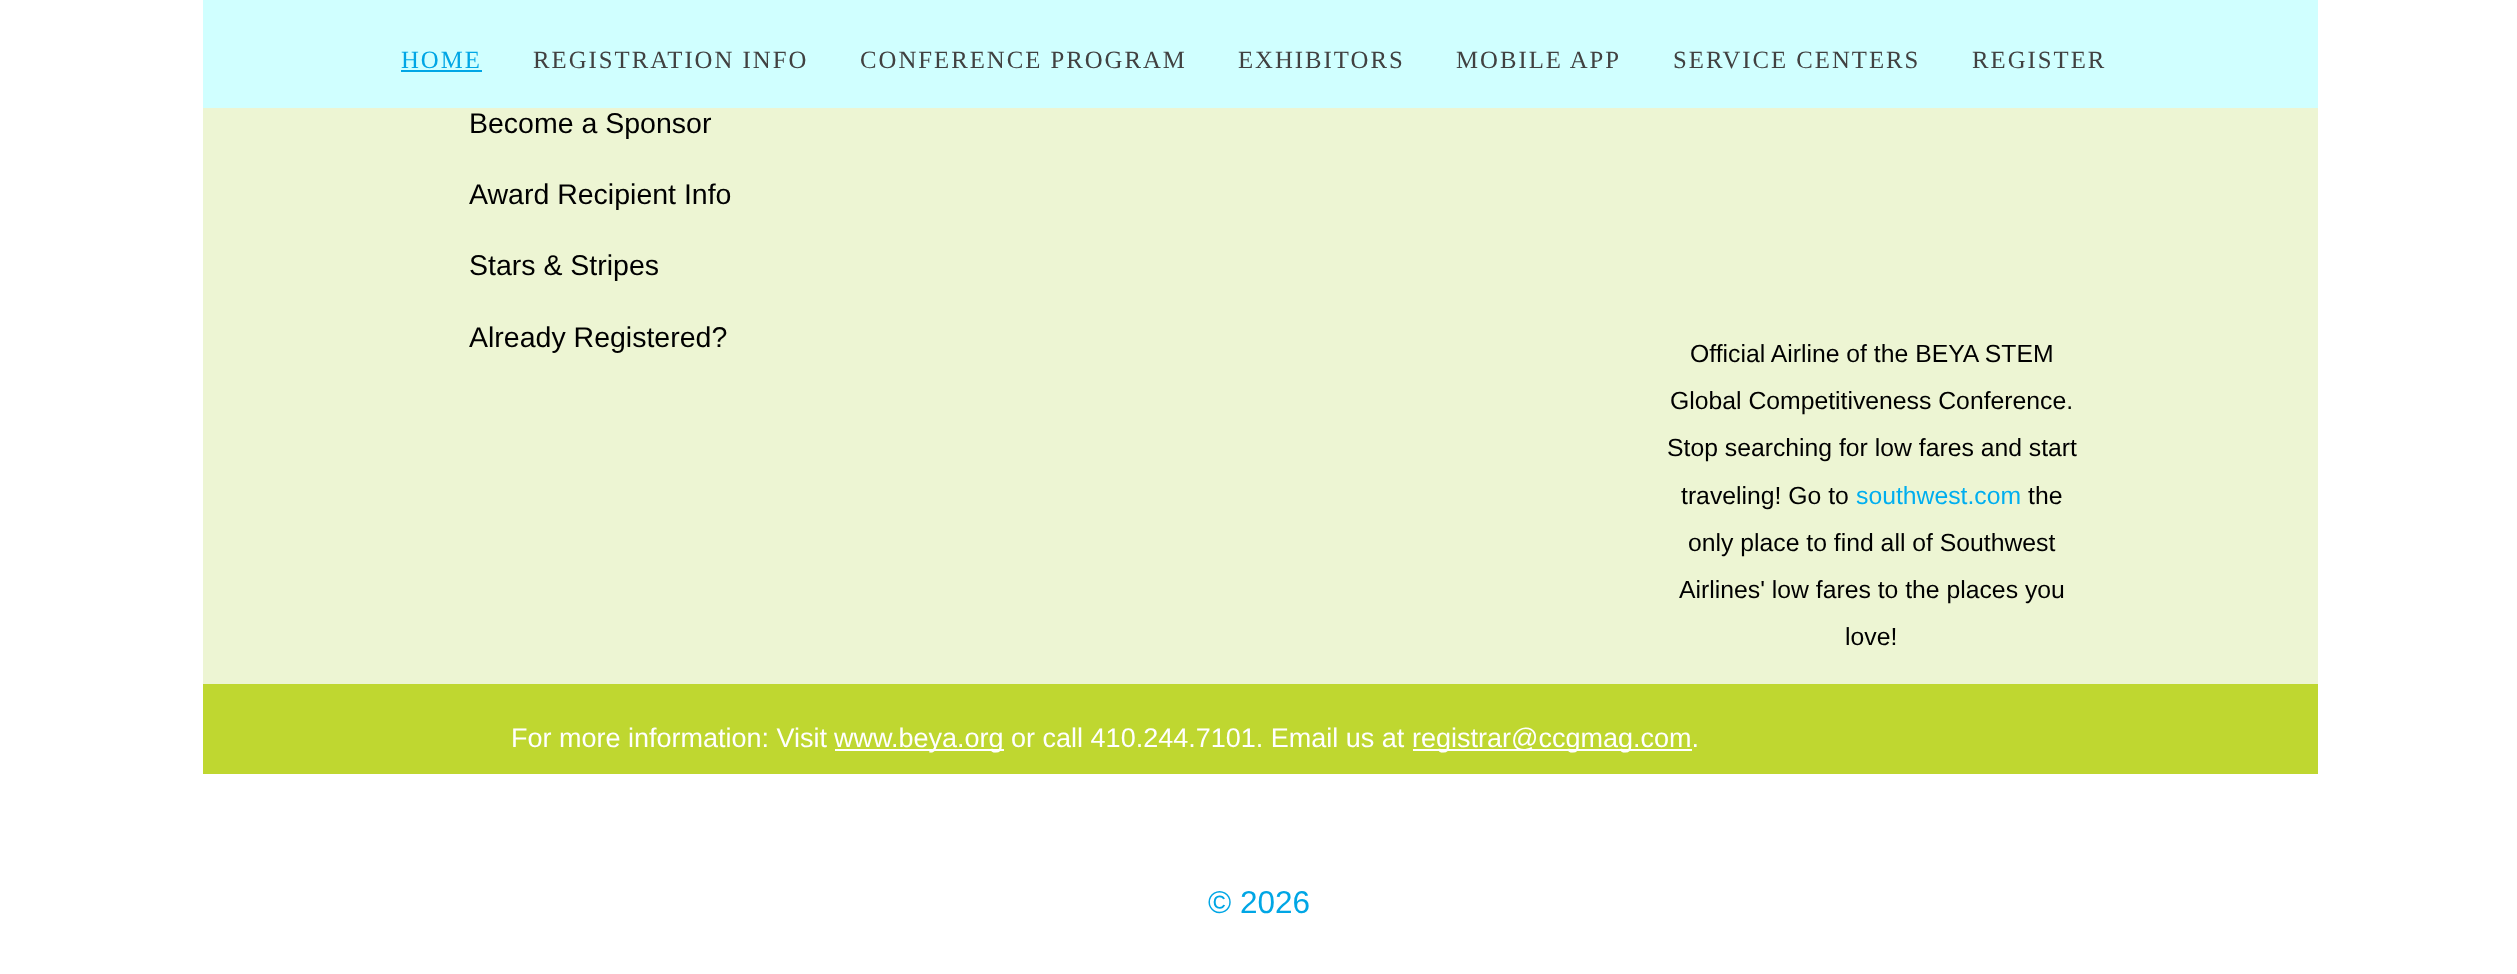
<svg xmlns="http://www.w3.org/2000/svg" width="2517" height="974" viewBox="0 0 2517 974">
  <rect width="100%" height="100%" fill="#ffffff"/>
  <rect x="203" y="0" width="2115" height="108" fill="#d0ffff"/>
  <text x="401" y="68" font-family="Liberation Serif" font-size="24.75" letter-spacing="2" fill="#00a6e5">HOME</text>
  <rect x="401" y="70" width="81" height="2" fill="#00a6e5"/>
  <text x="533" y="68" font-family="Liberation Serif" font-size="24.75" letter-spacing="2" fill="#414141">REGISTRATION INFO</text>
  <text x="860" y="68" font-family="Liberation Serif" font-size="24.75" letter-spacing="2" fill="#414141">CONFERENCE PROGRAM</text>
  <text x="1238" y="68" font-family="Liberation Serif" font-size="24.75" letter-spacing="2" fill="#414141">EXHIBITORS</text>
  <text x="1456" y="68" font-family="Liberation Serif" font-size="24.75" letter-spacing="2" fill="#414141">MOBILE APP</text>
  <text x="1673" y="68" font-family="Liberation Serif" font-size="24.75" letter-spacing="2" fill="#414141">SERVICE CENTERS</text>
  <text x="1972" y="68" font-family="Liberation Serif" font-size="24.75" letter-spacing="2" fill="#414141">REGISTER</text>
  <rect x="203" y="108" width="2115" height="576" fill="#edf5d3"/>
  <text x="469" y="133" font-family="Liberation Sans" font-size="28.5" fill="#000000">Become a Sponsor</text>
  <text x="469" y="204" font-family="Liberation Sans" font-size="28.5" fill="#000000">Award Recipient Info</text>
  <text x="469" y="275" font-family="Liberation Sans" font-size="28.5" fill="#000000">Stars &amp; Stripes</text>
  <text x="469" y="347" font-family="Liberation Sans" font-size="28.5" fill="#000000">Already Registered?</text>
  <text x="1690" y="362" font-family="Liberation Sans" font-size="24.75" fill="#000000">Official Airline of the BEYA STEM</text>
  <text x="1670" y="409" font-family="Liberation Sans" font-size="24.75" fill="#000000">Global Competitiveness Conference.</text>
  <text x="1667" y="456" font-family="Liberation Sans" font-size="24.75" fill="#000000">Stop searching for low fares and start</text>
  <text x="1681" y="504" font-family="Liberation Sans" font-size="24.75" fill="#000000">traveling! Go to</text>
  <text x="1856" y="504" font-family="Liberation Sans" font-size="24.75" fill="#00aeef">southwest.com</text>
  <text x="2028" y="504" font-family="Liberation Sans" font-size="24.75" fill="#000000">the</text>
  <text x="1688" y="551" font-family="Liberation Sans" font-size="24.75" fill="#000000">only place to find all of Southwest</text>
  <text x="1679" y="598" font-family="Liberation Sans" font-size="24.75" fill="#000000">Airlines' low fares to the places you</text>
  <text x="1845" y="645" font-family="Liberation Sans" font-size="24.75" fill="#000000">love!</text>
  <rect x="203" y="684" width="2115" height="90" fill="#bfd730"/>
  <text x="511" y="747" font-family="Liberation Sans" font-size="27" fill="#ffffff">For more information: Visit</text>
  <rect x="835" y="749" width="169" height="2" fill="#ffffff"/>
  <text x="834" y="747" font-family="Liberation Sans" font-size="27" fill="#ffffff">www.beya.org or call 410.244.7101. Email us at</text>
  <rect x="1413" y="749" width="279" height="2" fill="#ffffff"/>
  <text x="1412" y="747" font-family="Liberation Sans" font-size="27" fill="#ffffff">registrar@ccgmag.com.</text>
  <text x="1208" y="913" font-family="Liberation Sans" font-size="31.5" fill="#00a6e5">© 2026</text>
</svg>
